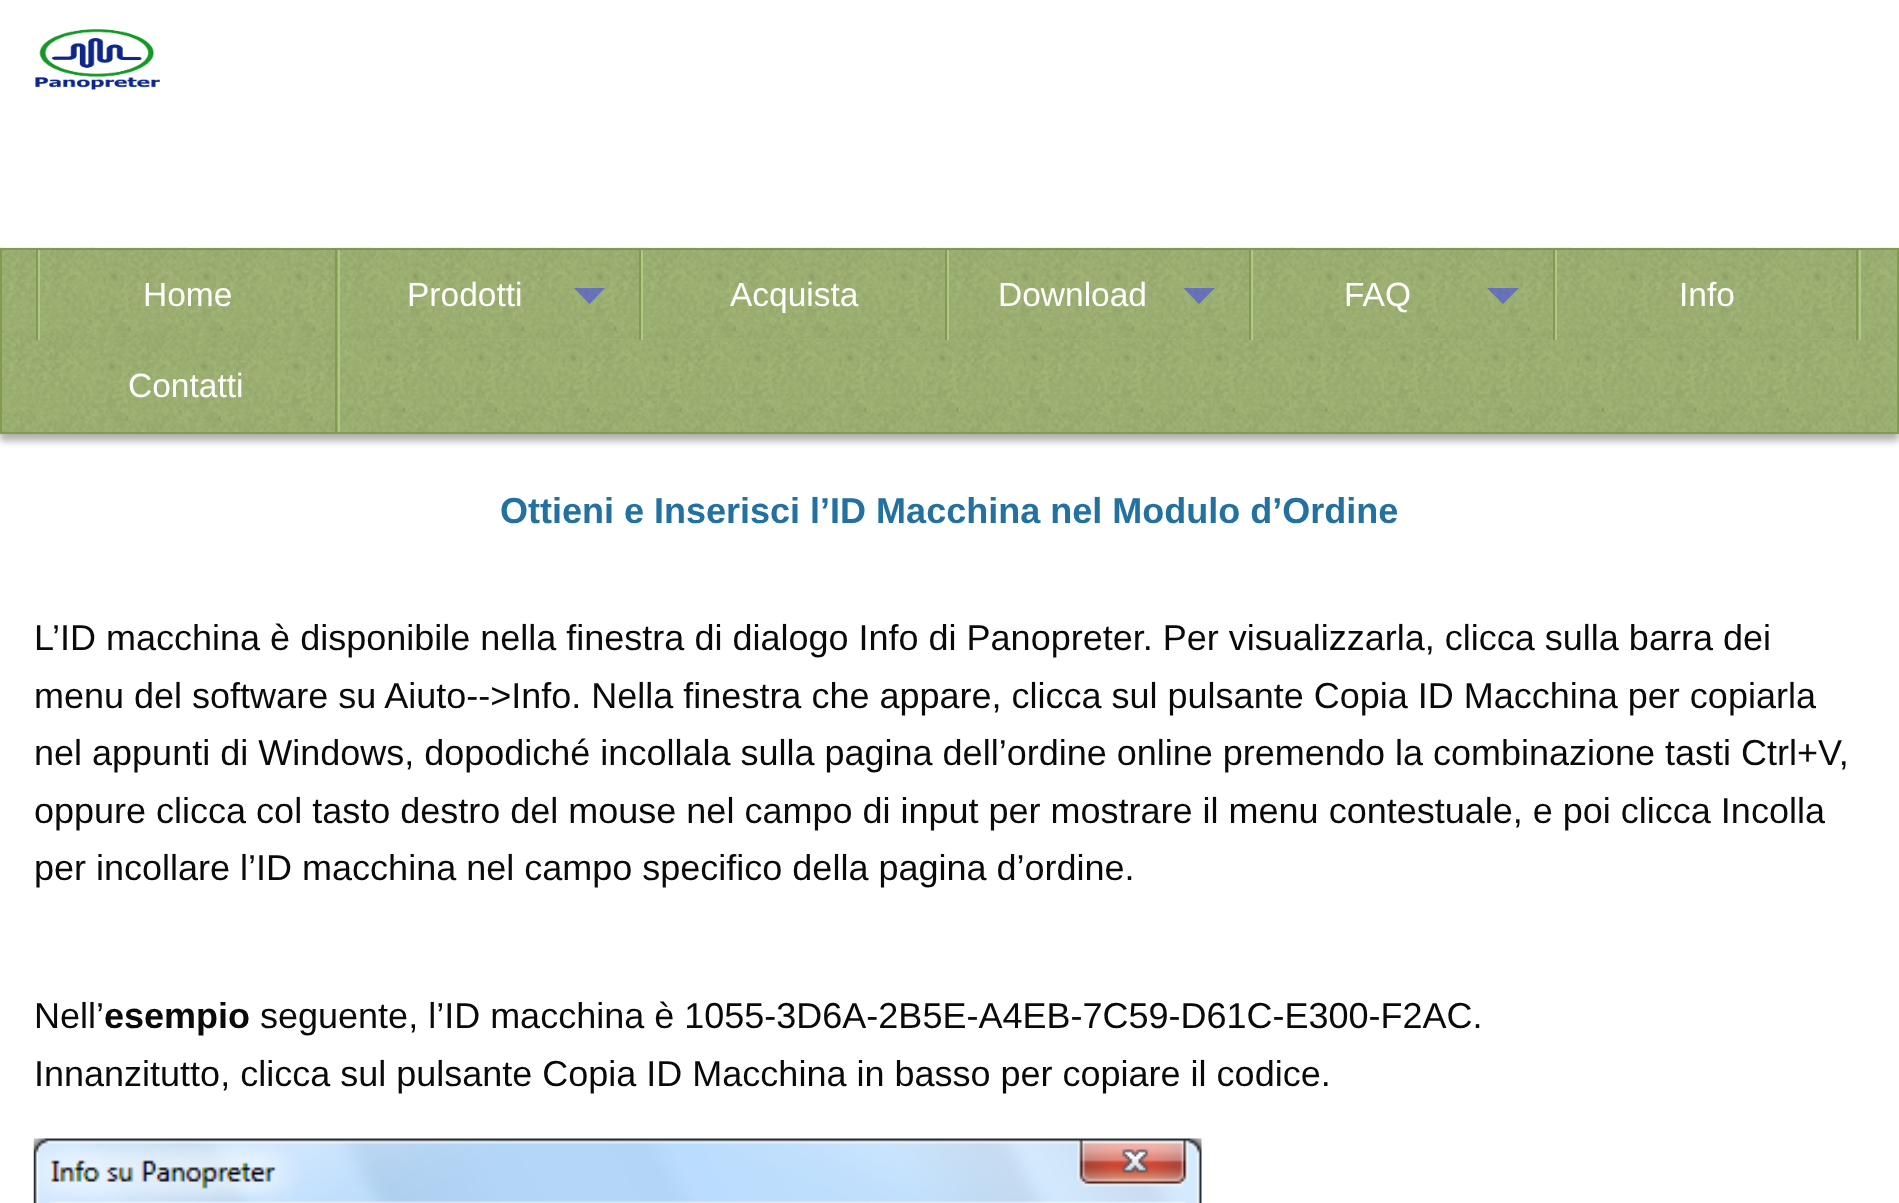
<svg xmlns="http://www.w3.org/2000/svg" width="1899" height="1203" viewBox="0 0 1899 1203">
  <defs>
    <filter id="blur1" x="-50%" y="-200%" width="200%" height="500%"><feGaussianBlur stdDeviation="3.5"/></filter>
  </defs>
  <rect width="100%" height="100%" fill="#ffffff"/>
  <image x="35" y="29" width="125" height="61" href="img1.png"/>
  <rect x="0" y="254" width="1899" height="187" fill="#000000" fill-opacity="0.3" filter="url(#blur1)"/>
  <rect x="2" y="250" width="1895" height="182" fill="#a7bc7a"/>
  <image x="0" y="247" width="1899" height="188" href="img2.png"/>
  <rect x="1" y="249" width="1897" height="184" fill="none" stroke="#839b4e" stroke-width="2"/>
  <rect x="340" y="250" width="1523" height="182" fill="#a7bc7a"/>
  <image x="36" y="249" width="1827" height="183" href="img3.png"/>
  <rect x="40" y="250" width="298" height="90" fill="#a7bc7a"/>
  <image x="36" y="249" width="302" height="91" href="img4.png"/>
  <rect x="338" y="250" width="2" height="182" fill="#b2c58b"/>
  <rect x="36" y="250" width="2" height="90" fill="#839b4e"/>
  <rect x="335" y="250" width="2" height="90" fill="#839b4e"/>
  <rect x="38" y="250" width="2" height="90" fill="#b2c58b"/>
  <text x="143" y="306" font-family="Liberation Sans" font-size="33.5" fill="#ffffff">Home</text>
  <rect x="340" y="250" width="909" height="90" fill="#a7bc7a"/>
  <image x="339" y="249" width="305" height="91" href="img5.png"/>
  <rect x="641" y="250" width="2" height="90" fill="#b2c58b"/>
  <rect x="639" y="250" width="2" height="90" fill="#839b4e"/>
  <text x="407" y="306" font-family="Liberation Sans" font-size="33.5" fill="#ffffff">Prodotti</text>
  <path d="M574 288H605L589.5 304Z" fill="#3333ff" fill-opacity="0.5"/>
  <image x="643" y="249" width="307" height="91" href="img6.png"/>
  <rect x="947" y="250" width="2" height="90" fill="#b2c58b"/>
  <rect x="945" y="250" width="2" height="90" fill="#839b4e"/>
  <text x="730" y="306" font-family="Liberation Sans" font-size="33.5" fill="#ffffff">Acquista</text>
  <image x="949" y="249" width="300" height="91" href="img7.png"/>
  <rect x="1251" y="250" width="2" height="90" fill="#b2c58b"/>
  <rect x="1249" y="250" width="2" height="90" fill="#839b4e"/>
  <text x="998" y="306" font-family="Liberation Sans" font-size="33.5" fill="#ffffff">Download</text>
  <path d="M1183.5 288H1215L1199 304Z" fill="#3333ff" fill-opacity="0.5"/>
  <rect x="1253" y="250" width="300" height="90" fill="#a7bc7a"/>
  <image x="1253" y="249" width="300" height="91" href="img8.png"/>
  <rect x="1555" y="250" width="2" height="90" fill="#b2c58b"/>
  <rect x="1553" y="250" width="2" height="90" fill="#839b4e"/>
  <text x="1344" y="306" font-family="Liberation Sans" font-size="33.5" fill="#ffffff">FAQ</text>
  <path d="M1487 288H1519L1503 304Z" fill="#3333ff" fill-opacity="0.5"/>
  <rect x="1557" y="250" width="302" height="90" fill="#a7bc7a"/>
  <image x="1557" y="249" width="302" height="91" href="img9.png"/>
  <rect x="1859" y="250" width="2" height="90" fill="#b2c58b"/>
  <rect x="1856" y="250" width="2" height="90" fill="#839b4e"/>
  <text x="1679" y="306" font-family="Liberation Sans" font-size="33.5" fill="#ffffff">Info</text>
  <rect x="36" y="340" width="302" height="92" fill="#a7bc7a"/>
  <image x="36" y="339" width="302" height="93" href="img10.png"/>
  <rect x="335" y="340" width="2" height="92" fill="#839b4e"/>
  <text x="128" y="397" font-family="Liberation Sans" font-size="33.5" fill="#ffffff">Contatti</text>
  <text x="500" y="523" font-family="Liberation Sans" font-size="36" font-weight="bold" fill="#2271a0">Ottieni e Inserisci l’ID Macchina nel Modulo d’Ordine</text>
  <text x="34" y="650" font-family="Liberation Sans" font-size="36" fill="#0a0a0a">L’ID macchina è disponibile nella finestra di dialogo Info di Panopreter. Per visualizzarla, clicca sulla barra dei</text>
  <text x="34" y="708" font-family="Liberation Sans" font-size="36" fill="#0a0a0a">menu del software su Aiuto--&gt;Info. Nella finestra che appare, clicca sul pulsante Copia ID Macchina per copiarla</text>
  <text x="34" y="765" font-family="Liberation Sans" font-size="36" fill="#0a0a0a">nel appunti di Windows, dopodiché incollala sulla pagina dell’ordine online premendo la combinazione tasti Ctrl+V,</text>
  <text x="34" y="823" font-family="Liberation Sans" font-size="36" fill="#0a0a0a">oppure clicca col tasto destro del mouse nel campo di input per mostrare il menu contestuale, e poi clicca Incolla</text>
  <text x="34" y="880" font-family="Liberation Sans" font-size="36" fill="#0a0a0a">per incollare l’ID macchina nel campo specifico della pagina d’ordine.</text>
  <text x="34" y="1028" font-family="Liberation Sans" font-size="36" fill="#0a0a0a">Nell’</text>
  <text x="104" y="1028" font-family="Liberation Sans" font-size="36" font-weight="bold" fill="#0a0a0a">esempio</text>
  <text x="260" y="1028" font-family="Liberation Sans" font-size="36" fill="#0a0a0a">seguente, l’ID macchina è 1055-3D6A-2B5E-A4EB-7C59-D61C-E300-F2AC.</text>
  <text x="34" y="1086" font-family="Liberation Sans" font-size="36" fill="#0a0a0a">Innanzitutto, clicca sul pulsante Copia ID Macchina in basso per copiare il codice.</text>
  <image x="33" y="1138" width="1169" height="65" href="img11.png"/>
</svg>
